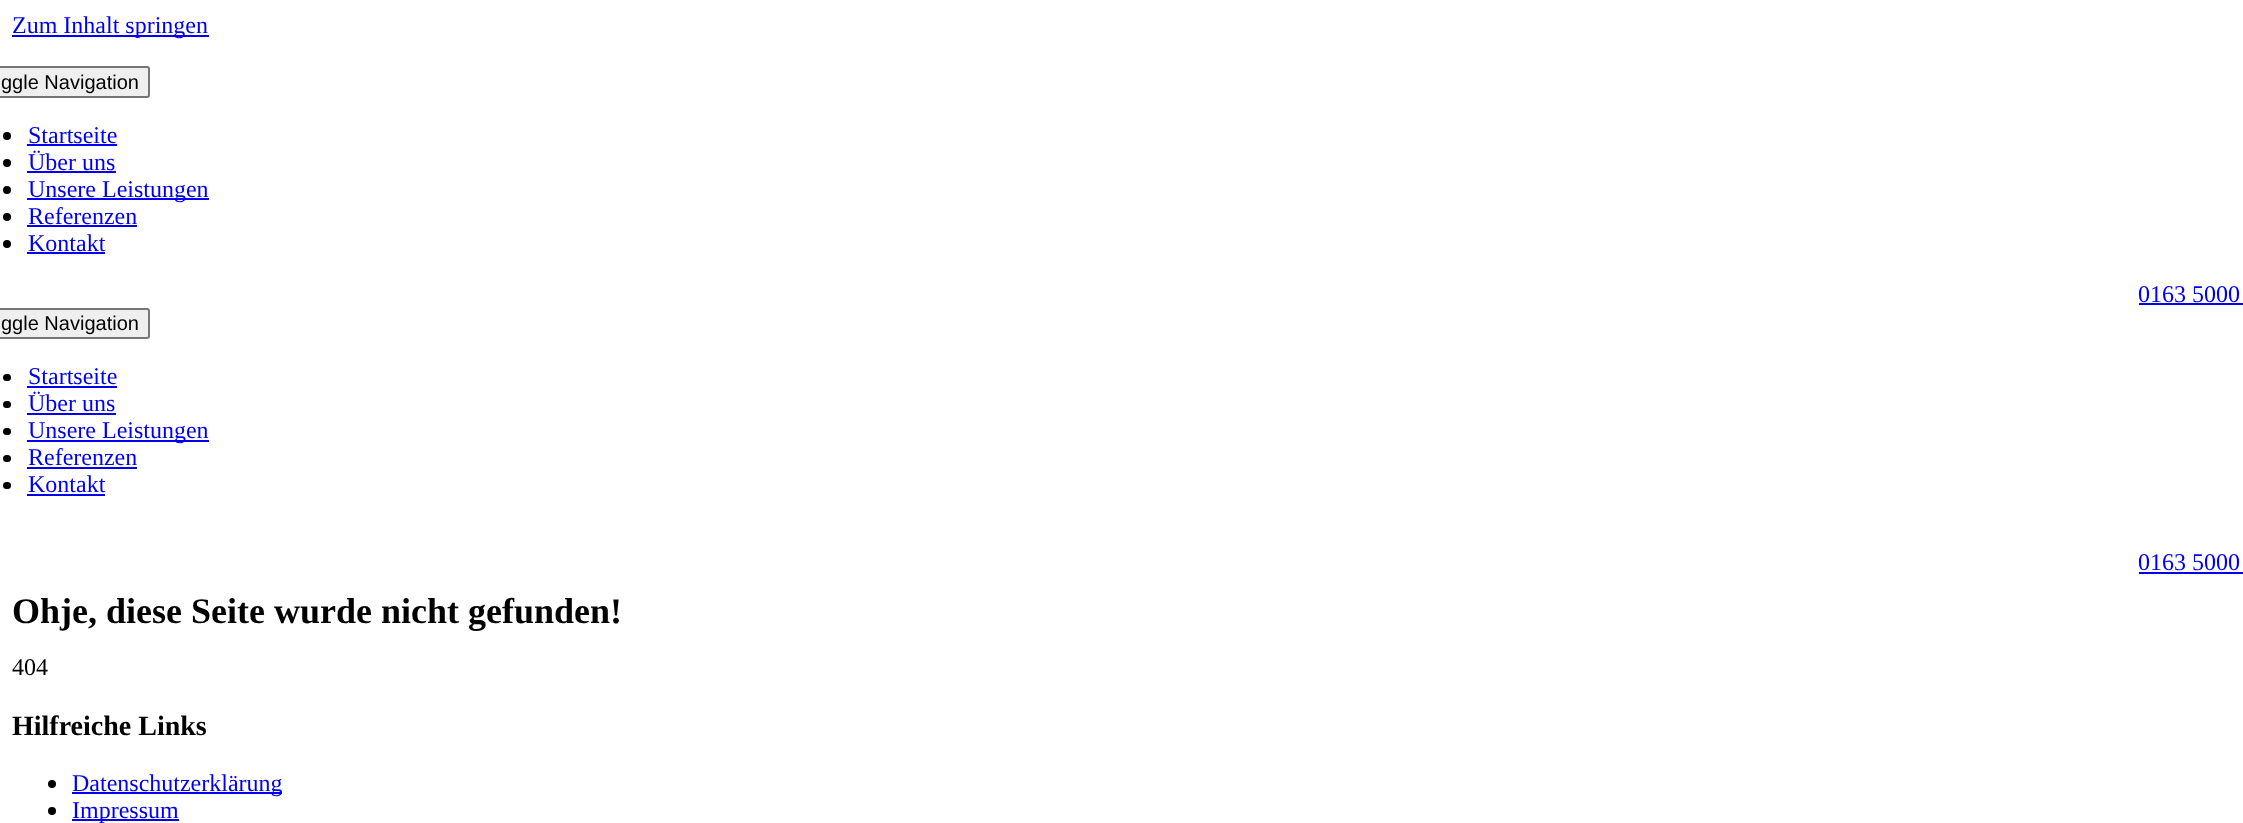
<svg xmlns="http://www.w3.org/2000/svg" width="2243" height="823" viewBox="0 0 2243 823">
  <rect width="100%" height="100%" fill="#ffffff"/>
  <rect x="12" y="35" width="197" height="2" fill="#0000ee"/>
  <text x="12" y="33" font-family="Liberation Serif" font-size="24" fill="#0000ee">Zum Inhalt springen</text>
  <rect x="-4" y="67" width="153" height="30" rx="2" fill="#efefef" stroke="#767676" stroke-width="2"/>
  <text x="1" y="89" font-family="Liberation Sans" font-size="20" fill="#000000">ggle Navigation</text>
  <circle cx="7" cy="136" r="4" fill="#000000"/>
  <text x="28" y="143" font-family="Liberation Serif" font-size="24" fill="#0000ee">Startseite</text>
  <rect x="27" y="144" width="90" height="2" fill="#0000ee"/>
  <circle cx="7" cy="163" r="4" fill="#000000"/>
  <text x="28" y="170" font-family="Liberation Serif" font-size="24" fill="#0000ee">Über uns</text>
  <rect x="27" y="171" width="89" height="2" fill="#0000ee"/>
  <circle cx="7" cy="190" r="4" fill="#000000"/>
  <rect x="27" y="198" width="182" height="2" fill="#0000ee"/>
  <text x="28" y="197" font-family="Liberation Serif" font-size="24" fill="#0000ee">Unsere Leistungen</text>
  <circle cx="7" cy="217" r="4" fill="#000000"/>
  <text x="28" y="224" font-family="Liberation Serif" font-size="24" fill="#0000ee">Referenzen</text>
  <rect x="27" y="225" width="110" height="2" fill="#0000ee"/>
  <circle cx="7" cy="244" r="4" fill="#000000"/>
  <text x="28" y="251" font-family="Liberation Serif" font-size="24" fill="#0000ee">Kontakt</text>
  <rect x="27" y="252" width="78" height="2" fill="#0000ee"/>
  <text x="2138" y="302" font-family="Liberation Serif" font-size="24" fill="#0000ee">0163 5000</text>
  <rect x="2139" y="303" width="104" height="2" fill="#0000ee"/>
  <rect x="-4" y="309" width="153" height="29" rx="2" fill="#efefef" stroke="#767676" stroke-width="2"/>
  <text x="1" y="330" font-family="Liberation Sans" font-size="20" fill="#000000">ggle Navigation</text>
  <rect x="3" y="374" width="8" height="7" rx="3.5" fill="#000000"/>
  <text x="28" y="384" font-family="Liberation Serif" font-size="24" fill="#0000ee">Startseite</text>
  <rect x="27" y="386" width="90" height="2" fill="#0000ee"/>
  <rect x="3" y="401" width="8" height="7" rx="3.5" fill="#000000"/>
  <text x="28" y="411" font-family="Liberation Serif" font-size="24" fill="#0000ee">Über uns</text>
  <rect x="27" y="413" width="89" height="2" fill="#0000ee"/>
  <rect x="3" y="428" width="8" height="7" rx="3.5" fill="#000000"/>
  <rect x="27" y="440" width="182" height="2" fill="#0000ee"/>
  <text x="28" y="438" font-family="Liberation Serif" font-size="24" fill="#0000ee">Unsere Leistungen</text>
  <rect x="3" y="455" width="8" height="7" rx="3.5" fill="#000000"/>
  <text x="28" y="465" font-family="Liberation Serif" font-size="24" fill="#0000ee">Referenzen</text>
  <rect x="27" y="467" width="110" height="2" fill="#0000ee"/>
  <rect x="3" y="482" width="8" height="7" rx="3.5" fill="#000000"/>
  <text x="28" y="492" font-family="Liberation Serif" font-size="24" fill="#0000ee">Kontakt</text>
  <rect x="27" y="494" width="78" height="2" fill="#0000ee"/>
  <text x="2138" y="570" font-family="Liberation Serif" font-size="24" fill="#0000ee">0163 5000</text>
  <rect x="2139" y="572" width="104" height="2" fill="#0000ee"/>
  <text x="12" y="623" font-family="Liberation Serif" font-size="36" font-weight="bold" fill="#000000">Ohje, diese Seite wurde nicht gefunden!</text>
  <text x="12" y="675" font-family="Liberation Serif" font-size="24" fill="#000000">404</text>
  <text x="12" y="735" font-family="Liberation Serif" font-size="28" font-weight="bold" fill="#000000">Hilfreiche Links</text>
  <circle cx="52" cy="784" r="4" fill="#000000"/>
  <rect x="72" y="792" width="210" height="2" fill="#0000ee"/>
  <text x="72" y="791" font-family="Liberation Serif" font-size="24" fill="#0000ee">Datenschutzerklärung</text>
  <circle cx="52" cy="811" r="4" fill="#000000"/>
  <rect x="72" y="819" width="107" height="2" fill="#0000ee"/>
  <text x="72" y="818" font-family="Liberation Serif" font-size="24" fill="#0000ee">Impressum</text>
</svg>
